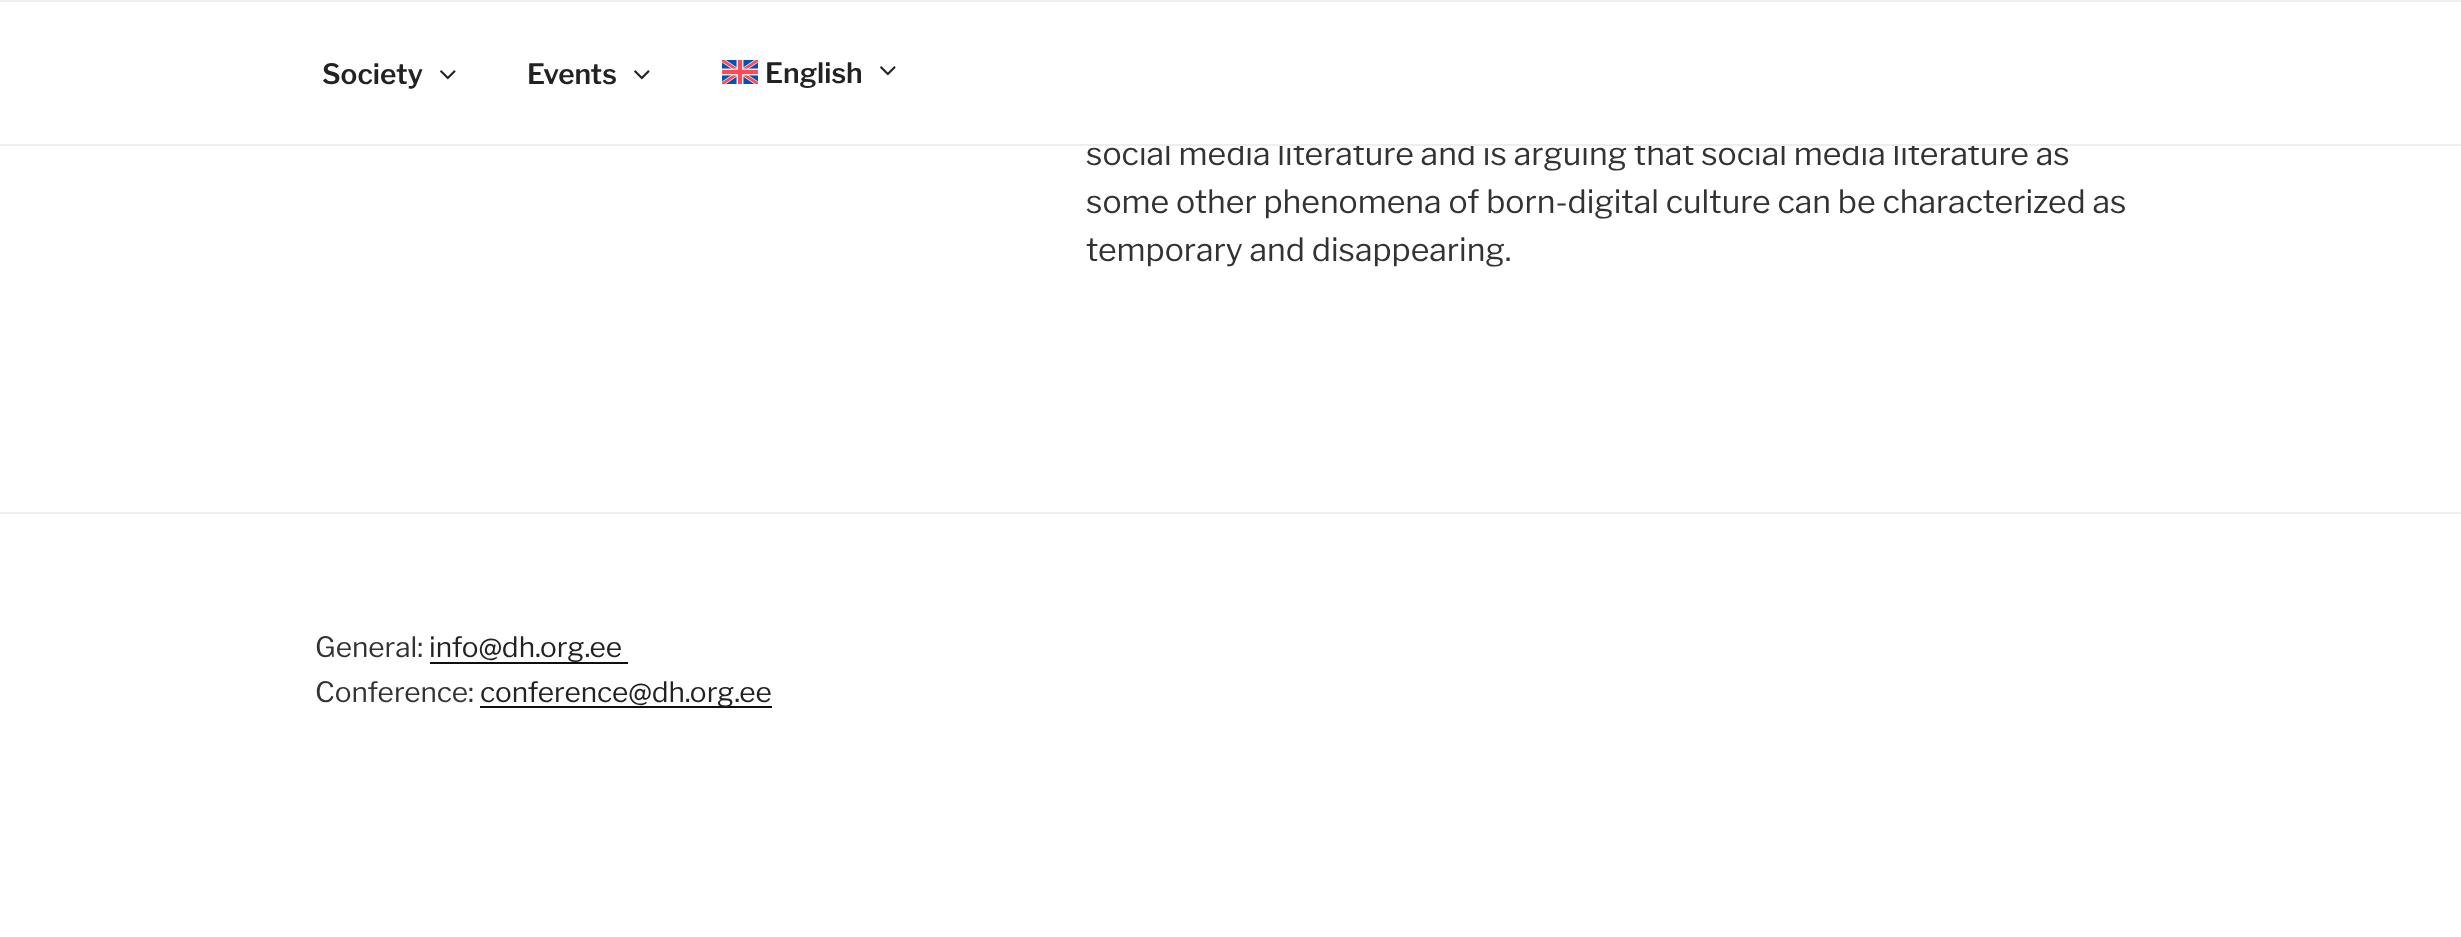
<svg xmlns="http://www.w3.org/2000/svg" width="2461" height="937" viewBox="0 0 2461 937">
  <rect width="100%" height="100%" fill="#ffffff"/>
  <text x="1086" y="165" font-family="Libre Franklin" font-size="32" font-weight="100" fill="#333333">social media literature and is arguing that social media literature as</text>
  <rect x="1141" y="141" width="834" height="3" fill="#ffffff"/>
  <rect x="0" y="0" width="2461" height="2" fill="#eeeeee"/>
  <rect x="0" y="144" width="2461" height="2" fill="#eeeeee"/>
  <text x="322" y="84" font-family="'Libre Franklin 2'" font-size="28" font-weight="100" fill="#222222">Society</text>
  <image x="440" y="70" width="16" height="10" href="img1.png"/>
  <text x="527" y="84" font-family="'Libre Franklin 2'" font-size="28" font-weight="100" fill="#222222">Events</text>
  <image x="634" y="70" width="16" height="10" href="img1.png"/>
  <image x="722" y="60" width="36" height="24" href="img2.png"/>
  <text x="765" y="83" font-family="'Libre Franklin 2'" font-size="28" font-weight="100" fill="#222222">English</text>
  <image x="880" y="66" width="16" height="10" href="img1.png"/>
  <text x="1086" y="213" font-family="Libre Franklin" font-size="32" font-weight="100" fill="#333333">some other phenomena of born-digital culture can be characterized as</text>
  <text x="1086" y="261" font-family="Libre Franklin" font-size="32" font-weight="100" fill="#333333">temporary and disappearing.</text>
  <rect x="0" y="512" width="2461" height="2" fill="#eeeeee"/>
  <text x="315" y="657" font-family="Libre Franklin" font-size="28" font-weight="100" fill="#333333">General:</text>
  <text x="429" y="657" font-family="Libre Franklin" font-size="28" font-weight="100" fill="#222222">info@dh.org.ee</text>
  <rect x="430" y="662" width="198" height="2" fill="#0f0f0f"/>
  <text x="315" y="702" font-family="Libre Franklin" font-size="28" font-weight="100" fill="#333333">Conference:</text>
  <rect x="480" y="706" width="292" height="2" fill="#0f0f0f"/>
  <text x="480" y="702" font-family="Libre Franklin" font-size="28" font-weight="100" fill="#222222">conference@dh.org.ee</text>
</svg>
